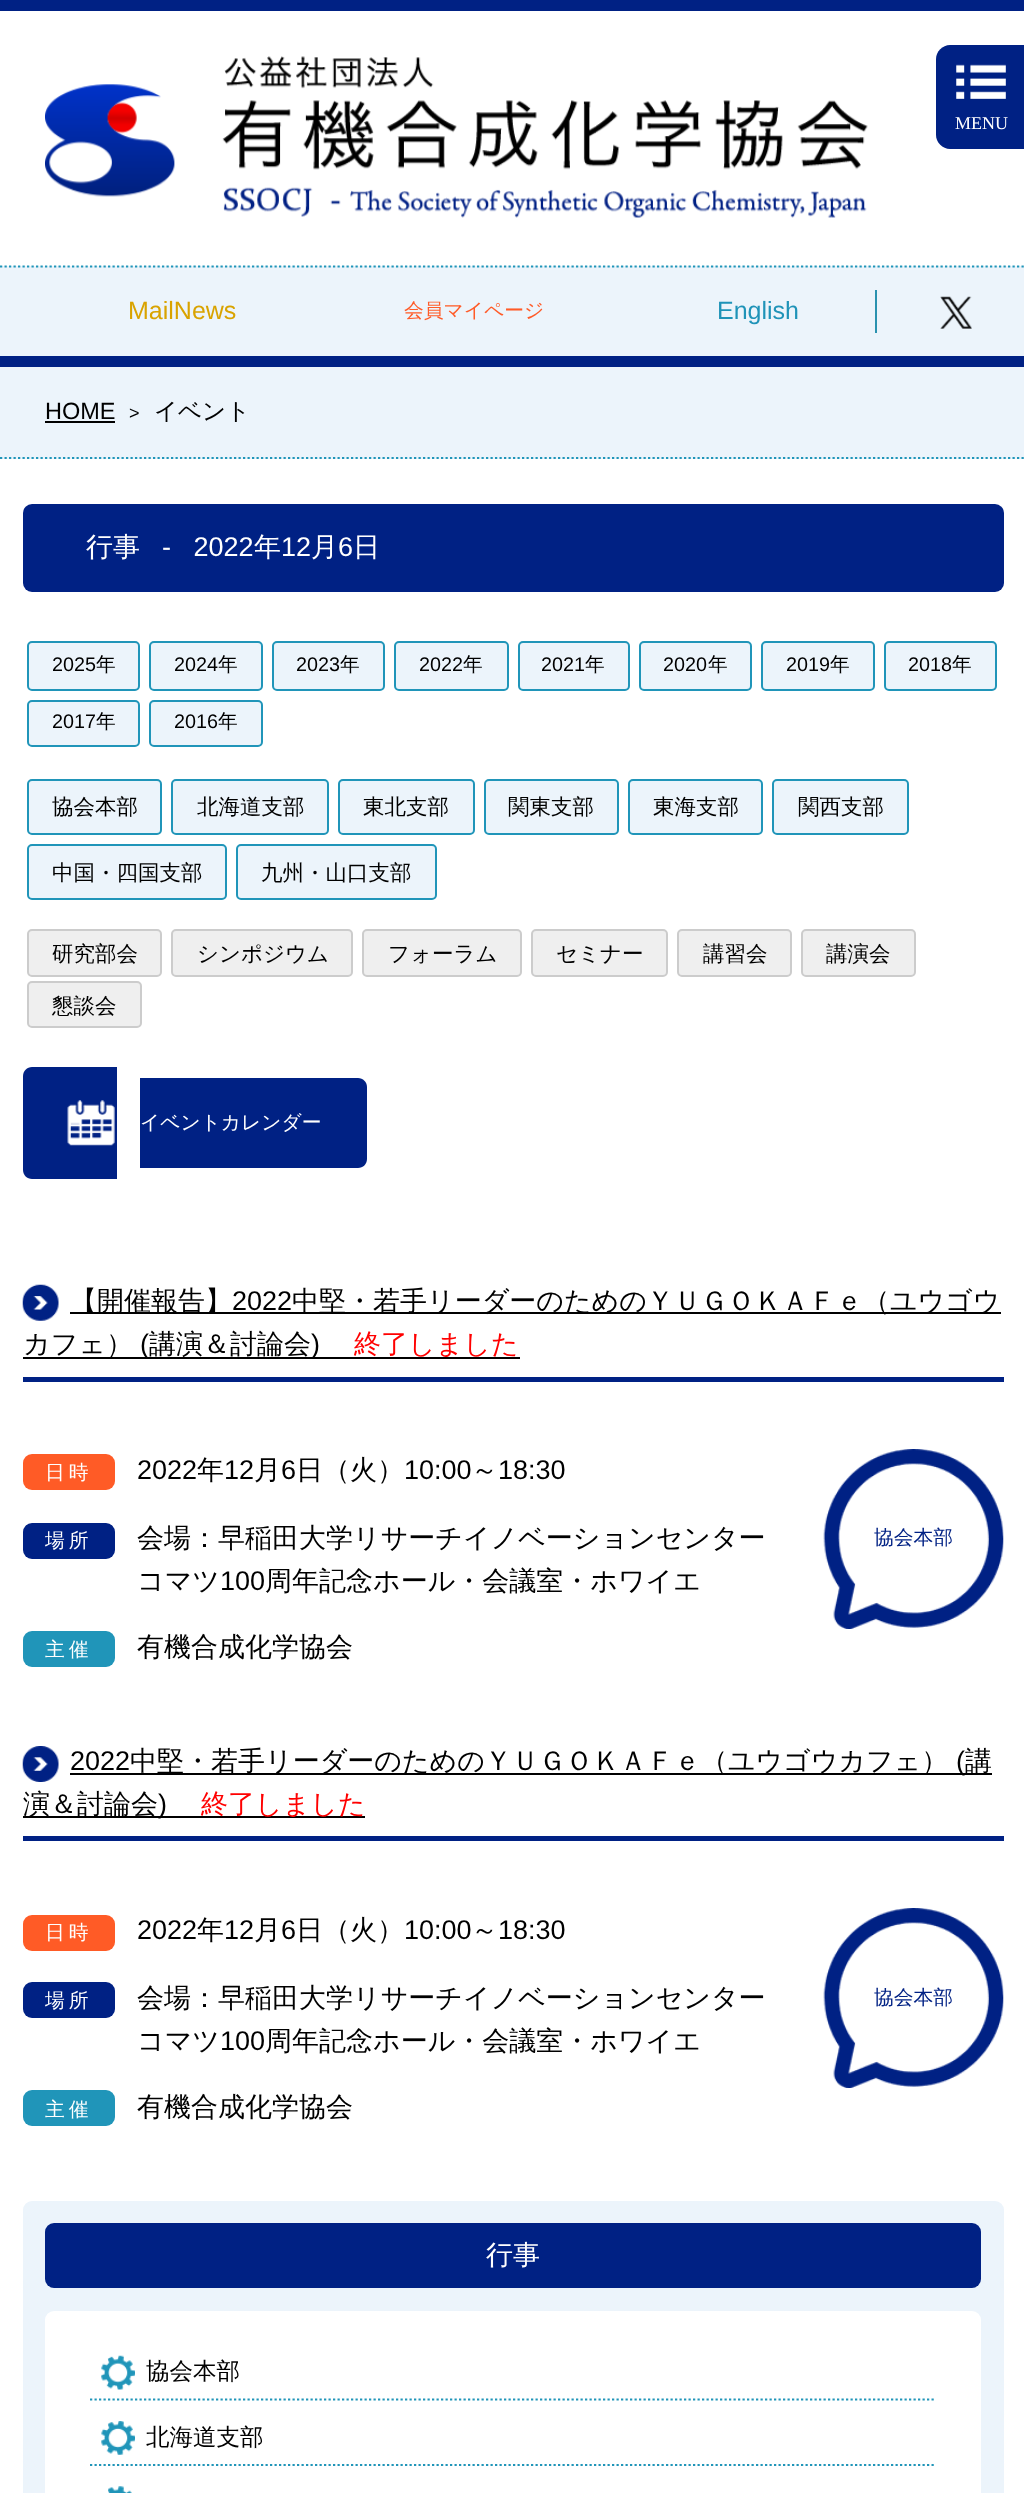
<svg xmlns="http://www.w3.org/2000/svg" width="1024" height="2493" viewBox="0 0 1024 2493">
  <rect width="100%" height="100%" fill="#ffffff"/>
  <rect x="0" y="0" width="1024" height="11" fill="#002184"/>
  <rect x="0" y="356" width="1024" height="11" fill="#002184"/>
  <image x="45" y="56" width="823" height="162" href="img1.png"/>
  <path d="M950 45H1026V149H950C942.5 149 936 142.5 936 135V59C936 51.5 942.5 45 950 45Z" fill="#002184"/>
  <image x="956" y="64" width="50" height="35" href="img2.png"/>
  <text x="955" y="129" font-family="Liberation Serif" font-size="18" fill="#ffffff">MENU</text>
  <rect x="0" y="266" width="1024" height="90" fill="#ecf4fb"/>
  <path d="M0 266.5H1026" fill="none" stroke="#2095b9" stroke-width="2.2" stroke-dasharray="2.25 2.25"/>
  <text x="128" y="319" font-family="Liberation Sans" font-size="25" fill="#d9a300">MailNews</text>
  <text x="404" y="317" font-family="WenQuanYi Zen Hei" font-size="19.75" font-weight="500" fill="#ff5b28">会員マイページ</text>
  <text x="717" y="319" font-family="Liberation Sans" font-size="25" fill="#1f93b8">English</text>
  <rect x="875" y="290" width="2" height="43" fill="#2a92af"/>
  <image x="940" y="296" width="32" height="33" href="img3.png"/>
  <rect x="0" y="367" width="1024" height="92" fill="#ecf4fb"/>
  <path d="M0 458H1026" fill="none" stroke="#2095b9" stroke-width="2.2" stroke-dasharray="2.25 2.25"/>
  <text x="45" y="419" font-family="Liberation Sans" font-size="23.5" fill="#000000">HOME</text>
  <rect x="45" y="421" width="70" height="2" fill="#000000"/>
  <text x="129" y="419" font-family="Liberation Sans" font-size="18" fill="#000000">&gt;</text>
  <text x="154" y="419" font-family="WenQuanYi Zen Hei" font-size="23.5" font-weight="500" fill="#000000">イベント</text>
  <rect x="23" y="504" width="981" height="88" rx="9" fill="#002184"/>
  <text x="86" y="556" font-family="WenQuanYi Zen Hei" font-size="27" font-weight="500" fill="#ffffff">行事</text>
  <text x="162" y="556" font-family="Liberation Sans" font-size="27" fill="#ffffff" xml:space="preserve">-   2022</text>
  <text x="254" y="556" font-family="WenQuanYi Zen Hei" font-size="27" font-weight="500" fill="#ffffff">年</text>
  <text x="281" y="556" font-family="Liberation Sans" font-size="27" fill="#ffffff">12</text>
  <text x="311" y="556" font-family="WenQuanYi Zen Hei" font-size="27" font-weight="500" fill="#ffffff">月</text>
  <text x="338" y="556" font-family="Liberation Sans" font-size="27" fill="#ffffff">6</text>
  <text x="353" y="556" font-family="WenQuanYi Zen Hei" font-size="27" font-weight="500" fill="#ffffff">日</text>
  <rect x="28" y="642" width="111" height="48" rx="4" fill="#ecf4fb" stroke="#2095b9" stroke-width="2"/>
  <text x="52" y="671" font-family="Liberation Sans" font-size="19.75" fill="#000000">2025</text>
  <text x="96" y="671" font-family="WenQuanYi Zen Hei" font-size="19.75" font-weight="500" fill="#000000">年</text>
  <rect x="150" y="642" width="112" height="48" rx="4" fill="#ecf4fb" stroke="#2095b9" stroke-width="2"/>
  <text x="174" y="671" font-family="Liberation Sans" font-size="19.75" fill="#000000">2024</text>
  <text x="218" y="671" font-family="WenQuanYi Zen Hei" font-size="19.75" font-weight="500" fill="#000000">年</text>
  <rect x="273" y="642" width="111" height="48" rx="4" fill="#ecf4fb" stroke="#2095b9" stroke-width="2"/>
  <text x="296" y="671" font-family="Liberation Sans" font-size="19.75" fill="#000000">2023</text>
  <text x="340" y="671" font-family="WenQuanYi Zen Hei" font-size="19.75" font-weight="500" fill="#000000">年</text>
  <rect x="395" y="642" width="113" height="48" rx="4" fill="#ecf4fb" stroke="#2095b9" stroke-width="2"/>
  <text x="419" y="671" font-family="Liberation Sans" font-size="19.75" fill="#000000">2022</text>
  <text x="463" y="671" font-family="WenQuanYi Zen Hei" font-size="19.75" font-weight="500" fill="#000000">年</text>
  <rect x="519" y="642" width="110" height="48" rx="4" fill="#ecf4fb" stroke="#2095b9" stroke-width="2"/>
  <text x="541" y="671" font-family="Liberation Sans" font-size="19.75" fill="#000000">2021</text>
  <text x="585" y="671" font-family="WenQuanYi Zen Hei" font-size="19.75" font-weight="500" fill="#000000">年</text>
  <rect x="640" y="642" width="111" height="48" rx="4" fill="#ecf4fb" stroke="#2095b9" stroke-width="2"/>
  <text x="663" y="671" font-family="Liberation Sans" font-size="19.75" fill="#000000">2020</text>
  <text x="708" y="671" font-family="WenQuanYi Zen Hei" font-size="19.75" font-weight="500" fill="#000000">年</text>
  <rect x="762" y="642" width="112" height="48" rx="4" fill="#ecf4fb" stroke="#2095b9" stroke-width="2"/>
  <text x="786" y="671" font-family="Liberation Sans" font-size="19.75" fill="#000000">2019</text>
  <text x="830" y="671" font-family="WenQuanYi Zen Hei" font-size="19.75" font-weight="500" fill="#000000">年</text>
  <rect x="885" y="642" width="111" height="48" rx="4" fill="#ecf4fb" stroke="#2095b9" stroke-width="2"/>
  <text x="908" y="671" font-family="Liberation Sans" font-size="19.75" fill="#000000">2018</text>
  <text x="952" y="671" font-family="WenQuanYi Zen Hei" font-size="19.75" font-weight="500" fill="#000000">年</text>
  <rect x="28" y="701" width="111" height="45" rx="4" fill="#ecf4fb" stroke="#2095b9" stroke-width="2"/>
  <text x="52" y="728" font-family="Liberation Sans" font-size="19.75" fill="#000000">2017</text>
  <text x="96" y="728" font-family="WenQuanYi Zen Hei" font-size="19.75" font-weight="500" fill="#000000">年</text>
  <rect x="150" y="701" width="112" height="45" rx="4" fill="#ecf4fb" stroke="#2095b9" stroke-width="2"/>
  <text x="174" y="728" font-family="Liberation Sans" font-size="19.75" fill="#000000">2016</text>
  <text x="218" y="728" font-family="WenQuanYi Zen Hei" font-size="19.75" font-weight="500" fill="#000000">年</text>
  <rect x="28" y="780" width="133" height="54" rx="4" fill="#ecf4fb" stroke="#2095b9" stroke-width="2"/>
  <text x="52" y="814" font-family="WenQuanYi Zen Hei" font-size="21.5" font-weight="500" fill="#000000">協会本部</text>
  <rect x="172" y="780" width="156" height="54" rx="4" fill="#ecf4fb" stroke="#2095b9" stroke-width="2"/>
  <text x="197" y="814" font-family="WenQuanYi Zen Hei" font-size="21.5" font-weight="500" fill="#000000">北海道支部</text>
  <rect x="339" y="780" width="135" height="54" rx="4" fill="#ecf4fb" stroke="#2095b9" stroke-width="2"/>
  <text x="363" y="814" font-family="WenQuanYi Zen Hei" font-size="21.5" font-weight="500" fill="#000000">東北支部</text>
  <rect x="485" y="780" width="133" height="54" rx="4" fill="#ecf4fb" stroke="#2095b9" stroke-width="2"/>
  <text x="508" y="814" font-family="WenQuanYi Zen Hei" font-size="21.5" font-weight="500" fill="#000000">関東支部</text>
  <rect x="629" y="780" width="133" height="54" rx="4" fill="#ecf4fb" stroke="#2095b9" stroke-width="2"/>
  <text x="653" y="814" font-family="WenQuanYi Zen Hei" font-size="21.5" font-weight="500" fill="#000000">東海支部</text>
  <rect x="773" y="780" width="135" height="54" rx="4" fill="#ecf4fb" stroke="#2095b9" stroke-width="2"/>
  <text x="798" y="814" font-family="WenQuanYi Zen Hei" font-size="21.5" font-weight="500" fill="#000000">関西支部</text>
  <rect x="28" y="845" width="198" height="54" rx="4" fill="#ecf4fb" stroke="#2095b9" stroke-width="2"/>
  <text x="52" y="880" font-family="WenQuanYi Zen Hei" font-size="21.5" font-weight="500" fill="#000000">中国・四国支部</text>
  <rect x="237" y="845" width="199" height="54" rx="4" fill="#ecf4fb" stroke="#2095b9" stroke-width="2"/>
  <text x="261" y="880" font-family="WenQuanYi Zen Hei" font-size="21.5" font-weight="500" fill="#000000">九州・山口支部</text>
  <rect x="28" y="930" width="133" height="46" rx="4" fill="#efefef" stroke="#cccccc" stroke-width="2"/>
  <text x="52" y="961" font-family="WenQuanYi Zen Hei" font-size="21.5" font-weight="500" fill="#000000">研究部会</text>
  <rect x="172" y="930" width="180" height="46" rx="4" fill="#efefef" stroke="#cccccc" stroke-width="2"/>
  <text x="197" y="961" font-family="WenQuanYi Zen Hei" font-size="21.5" font-weight="500" fill="#000000">シンポジウム</text>
  <rect x="363" y="930" width="158" height="46" rx="4" fill="#efefef" stroke="#cccccc" stroke-width="2"/>
  <text x="388" y="961" font-family="WenQuanYi Zen Hei" font-size="21.5" font-weight="500" fill="#000000">フォーラム</text>
  <rect x="532" y="930" width="135" height="46" rx="4" fill="#efefef" stroke="#cccccc" stroke-width="2"/>
  <text x="556" y="961" font-family="WenQuanYi Zen Hei" font-size="21.5" font-weight="500" fill="#000000">セミナー</text>
  <rect x="678" y="930" width="113" height="46" rx="4" fill="#efefef" stroke="#cccccc" stroke-width="2"/>
  <text x="703" y="961" font-family="WenQuanYi Zen Hei" font-size="21.5" font-weight="500" fill="#000000">講習会</text>
  <rect x="802" y="930" width="113" height="46" rx="4" fill="#efefef" stroke="#cccccc" stroke-width="2"/>
  <text x="826" y="961" font-family="WenQuanYi Zen Hei" font-size="21.5" font-weight="500" fill="#000000">講演会</text>
  <rect x="28" y="982" width="113" height="45" rx="4" fill="#efefef" stroke="#cccccc" stroke-width="2"/>
  <text x="52" y="1013" font-family="WenQuanYi Zen Hei" font-size="21.5" font-weight="500" fill="#000000">懇談会</text>
  <path d="M32 1067H117V1179H32C27 1179 23 1175 23 1170V1076C23 1071 27 1067 32 1067Z" fill="#002184"/>
  <path d="M140 1078H358C363 1078 367 1082 367 1087V1159C367 1164 363 1168 358 1168H140Z" fill="#002184"/>
  <image x="67" y="1100" width="48" height="46" href="img4.png"/>
  <text x="140" y="1129" font-family="WenQuanYi Zen Hei" font-size="19.75" font-weight="500" fill="#ffffff">イベントカレンダー</text>
  <rect x="23" y="1377" width="981" height="5" fill="#002184"/>
  <image x="22" y="1284" width="37" height="37" href="img5.png"/>
  <rect x="70" y="1312" width="931" height="2" fill="#000000"/>
  <text x="70" y="1310" font-family="WenQuanYi Zen Hei" font-size="27" font-weight="500" fill="#000000">【開催報告】</text>
  <text x="232" y="1310" font-family="Liberation Sans" font-size="27" fill="#000000">2022</text>
  <text x="292" y="1310" font-family="WenQuanYi Zen Hei" font-size="27" font-weight="500" fill="#000000">中堅・若手リーダーのためのＹＵＧＯＫＡＦｅ（ユウゴウ</text>
  <rect x="23" y="1357" width="497" height="2" fill="#000000"/>
  <text x="23" y="1353" font-family="WenQuanYi Zen Hei" font-size="27" font-weight="500" fill="#000000">カフェ）</text>
  <text x="140" y="1353" font-family="Liberation Sans" font-size="27" fill="#000000">(</text>
  <text x="149" y="1353" font-family="WenQuanYi Zen Hei" font-size="27" font-weight="500" fill="#000000">講演＆討論会</text>
  <text x="311" y="1353" font-family="Liberation Sans" font-size="27" fill="#000000">)</text>
  <text x="354" y="1353" font-family="WenQuanYi Zen Hei" font-size="27" font-weight="500" fill="#ff0000">終了しました</text>
  <rect x="23" y="1454" width="92" height="36" rx="9" fill="#ff5b26"/>
  <text x="45" y="1479" font-family="WenQuanYi Zen Hei" font-size="19.75" font-weight="500" letter-spacing="4" fill="#ffffff">日時</text>
  <text x="137" y="1479" font-family="Liberation Sans" font-size="27" fill="#000000">2022</text>
  <text x="197" y="1479" font-family="WenQuanYi Zen Hei" font-size="27" font-weight="500" fill="#000000">年</text>
  <text x="224" y="1479" font-family="Liberation Sans" font-size="27" fill="#000000">12</text>
  <text x="254" y="1479" font-family="WenQuanYi Zen Hei" font-size="27" font-weight="500" fill="#000000">月</text>
  <text x="281" y="1479" font-family="Liberation Sans" font-size="27" fill="#000000">6</text>
  <text x="296" y="1479" font-family="WenQuanYi Zen Hei" font-size="27" font-weight="500" fill="#000000">日（火）</text>
  <text x="404" y="1479" font-family="Liberation Sans" font-size="27" fill="#000000">10:00</text>
  <text x="471" y="1479" font-family="WenQuanYi Zen Hei" font-size="27" font-weight="500" fill="#000000">～</text>
  <text x="498" y="1479" font-family="Liberation Sans" font-size="27" fill="#000000">18:30</text>
  <rect x="23" y="1523" width="92" height="36" rx="9" fill="#002184"/>
  <text x="45" y="1547" font-family="WenQuanYi Zen Hei" font-size="19.75" font-weight="500" letter-spacing="4" fill="#ffffff">場所</text>
  <text x="137" y="1547" font-family="WenQuanYi Zen Hei" font-size="27" font-weight="500" fill="#000000">会場：早稲田大学リサーチイノベーションセンター</text>
  <text x="137" y="1590" font-family="WenQuanYi Zen Hei" font-size="27" font-weight="500" fill="#000000">コマツ</text>
  <text x="220" y="1590" font-family="Liberation Sans" font-size="27" fill="#000000">100</text>
  <text x="265" y="1590" font-family="WenQuanYi Zen Hei" font-size="27" font-weight="500" fill="#000000">周年記念ホール・会議室・ホワイエ</text>
  <rect x="23" y="1631" width="92" height="36" rx="9" fill="#2095b9"/>
  <text x="45" y="1656" font-family="WenQuanYi Zen Hei" font-size="19.75" font-weight="500" letter-spacing="4" fill="#ffffff">主催</text>
  <text x="137" y="1656" font-family="WenQuanYi Zen Hei" font-size="27" font-weight="500" fill="#000000">有機合成化学協会</text>
  <image x="823" y="1449" width="181" height="180" href="img6.png"/>
  <text x="874" y="1544" font-family="WenQuanYi Zen Hei" font-size="19.75" font-weight="500" fill="#002184">協会本部</text>
  <rect x="23" y="1836" width="981" height="5" fill="#002184"/>
  <image x="22" y="1746" width="37" height="36" href="img7.png"/>
  <text x="70" y="1770" font-family="Liberation Sans" font-size="27" fill="#000000">2022</text>
  <rect x="70" y="1773" width="922" height="2" fill="#000000"/>
  <text x="130" y="1770" font-family="WenQuanYi Zen Hei" font-size="27" font-weight="500" fill="#000000">中堅・若手リーダーのためのＹＵＧＯＫＡＦｅ（ユウゴウカフェ）</text>
  <text x="956" y="1770" font-family="Liberation Sans" font-size="27" fill="#000000">(</text>
  <text x="965" y="1770" font-family="WenQuanYi Zen Hei" font-size="27" font-weight="500" fill="#000000">講</text>
  <rect x="23" y="1816" width="342" height="2" fill="#000000"/>
  <text x="23" y="1813" font-family="WenQuanYi Zen Hei" font-size="27" font-weight="500" fill="#000000">演＆討論会</text>
  <text x="158" y="1813" font-family="Liberation Sans" font-size="27" fill="#000000">)</text>
  <text x="201" y="1813" font-family="WenQuanYi Zen Hei" font-size="27" font-weight="500" fill="#ff0000">終了しました</text>
  <rect x="23" y="1915" width="92" height="36" rx="9" fill="#ff5b26"/>
  <text x="45" y="1939" font-family="WenQuanYi Zen Hei" font-size="19.75" font-weight="500" letter-spacing="4" fill="#ffffff">日時</text>
  <text x="137" y="1939" font-family="Liberation Sans" font-size="27" fill="#000000">2022</text>
  <text x="197" y="1939" font-family="WenQuanYi Zen Hei" font-size="27" font-weight="500" fill="#000000">年</text>
  <text x="224" y="1939" font-family="Liberation Sans" font-size="27" fill="#000000">12</text>
  <text x="254" y="1939" font-family="WenQuanYi Zen Hei" font-size="27" font-weight="500" fill="#000000">月</text>
  <text x="281" y="1939" font-family="Liberation Sans" font-size="27" fill="#000000">6</text>
  <text x="296" y="1939" font-family="WenQuanYi Zen Hei" font-size="27" font-weight="500" fill="#000000">日（火）</text>
  <text x="404" y="1939" font-family="Liberation Sans" font-size="27" fill="#000000">10:00</text>
  <text x="471" y="1939" font-family="WenQuanYi Zen Hei" font-size="27" font-weight="500" fill="#000000">～</text>
  <text x="498" y="1939" font-family="Liberation Sans" font-size="27" fill="#000000">18:30</text>
  <rect x="23" y="1982" width="92" height="36" rx="9" fill="#002184"/>
  <text x="45" y="2007" font-family="WenQuanYi Zen Hei" font-size="19.75" font-weight="500" letter-spacing="4" fill="#ffffff">場所</text>
  <text x="137" y="2007" font-family="WenQuanYi Zen Hei" font-size="27" font-weight="500" fill="#000000">会場：早稲田大学リサーチイノベーションセンター</text>
  <text x="137" y="2050" font-family="WenQuanYi Zen Hei" font-size="27" font-weight="500" fill="#000000">コマツ</text>
  <text x="220" y="2050" font-family="Liberation Sans" font-size="27" fill="#000000">100</text>
  <text x="265" y="2050" font-family="WenQuanYi Zen Hei" font-size="27" font-weight="500" fill="#000000">周年記念ホール・会議室・ホワイエ</text>
  <rect x="23" y="2090" width="92" height="36" rx="9" fill="#2095b9"/>
  <text x="45" y="2116" font-family="WenQuanYi Zen Hei" font-size="19.75" font-weight="500" letter-spacing="4" fill="#ffffff">主催</text>
  <text x="137" y="2116" font-family="WenQuanYi Zen Hei" font-size="27" font-weight="500" fill="#000000">有機合成化学協会</text>
  <image x="823" y="1908" width="181" height="180" href="img6.png"/>
  <text x="874" y="2004" font-family="WenQuanYi Zen Hei" font-size="19.75" font-weight="500" fill="#002184">協会本部</text>
  <rect x="23" y="2201" width="981" height="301" rx="9" fill="#ecf4fb"/>
  <rect x="45" y="2223" width="936" height="65" rx="9" fill="#002184"/>
  <text x="486" y="2264" font-family="WenQuanYi Zen Hei" font-size="27" font-weight="500" fill="#ffffff">行事</text>
  <rect x="45" y="2311" width="936" height="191" rx="9" fill="#ffffff"/>
  <path d="M90 2399.5H936" fill="none" stroke="#2095b9" stroke-width="2.2" stroke-dasharray="2.25 2.25"/>
  <image x="101" y="2355" width="34" height="35" href="img8.png"/>
  <text x="146" y="2379" font-family="WenQuanYi Zen Hei" font-size="23.5" font-weight="500" fill="#000000">協会本部</text>
  <path d="M90 2465H936" fill="none" stroke="#2095b9" stroke-width="2.2" stroke-dasharray="2.25 2.25"/>
  <image x="101" y="2421" width="34" height="34" href="img9.png"/>
  <text x="146" y="2445" font-family="WenQuanYi Zen Hei" font-size="23.5" font-weight="500" fill="#000000">北海道支部</text>
  <image x="108" y="2486" width="24" height="7" href="img10.png"/>
</svg>
